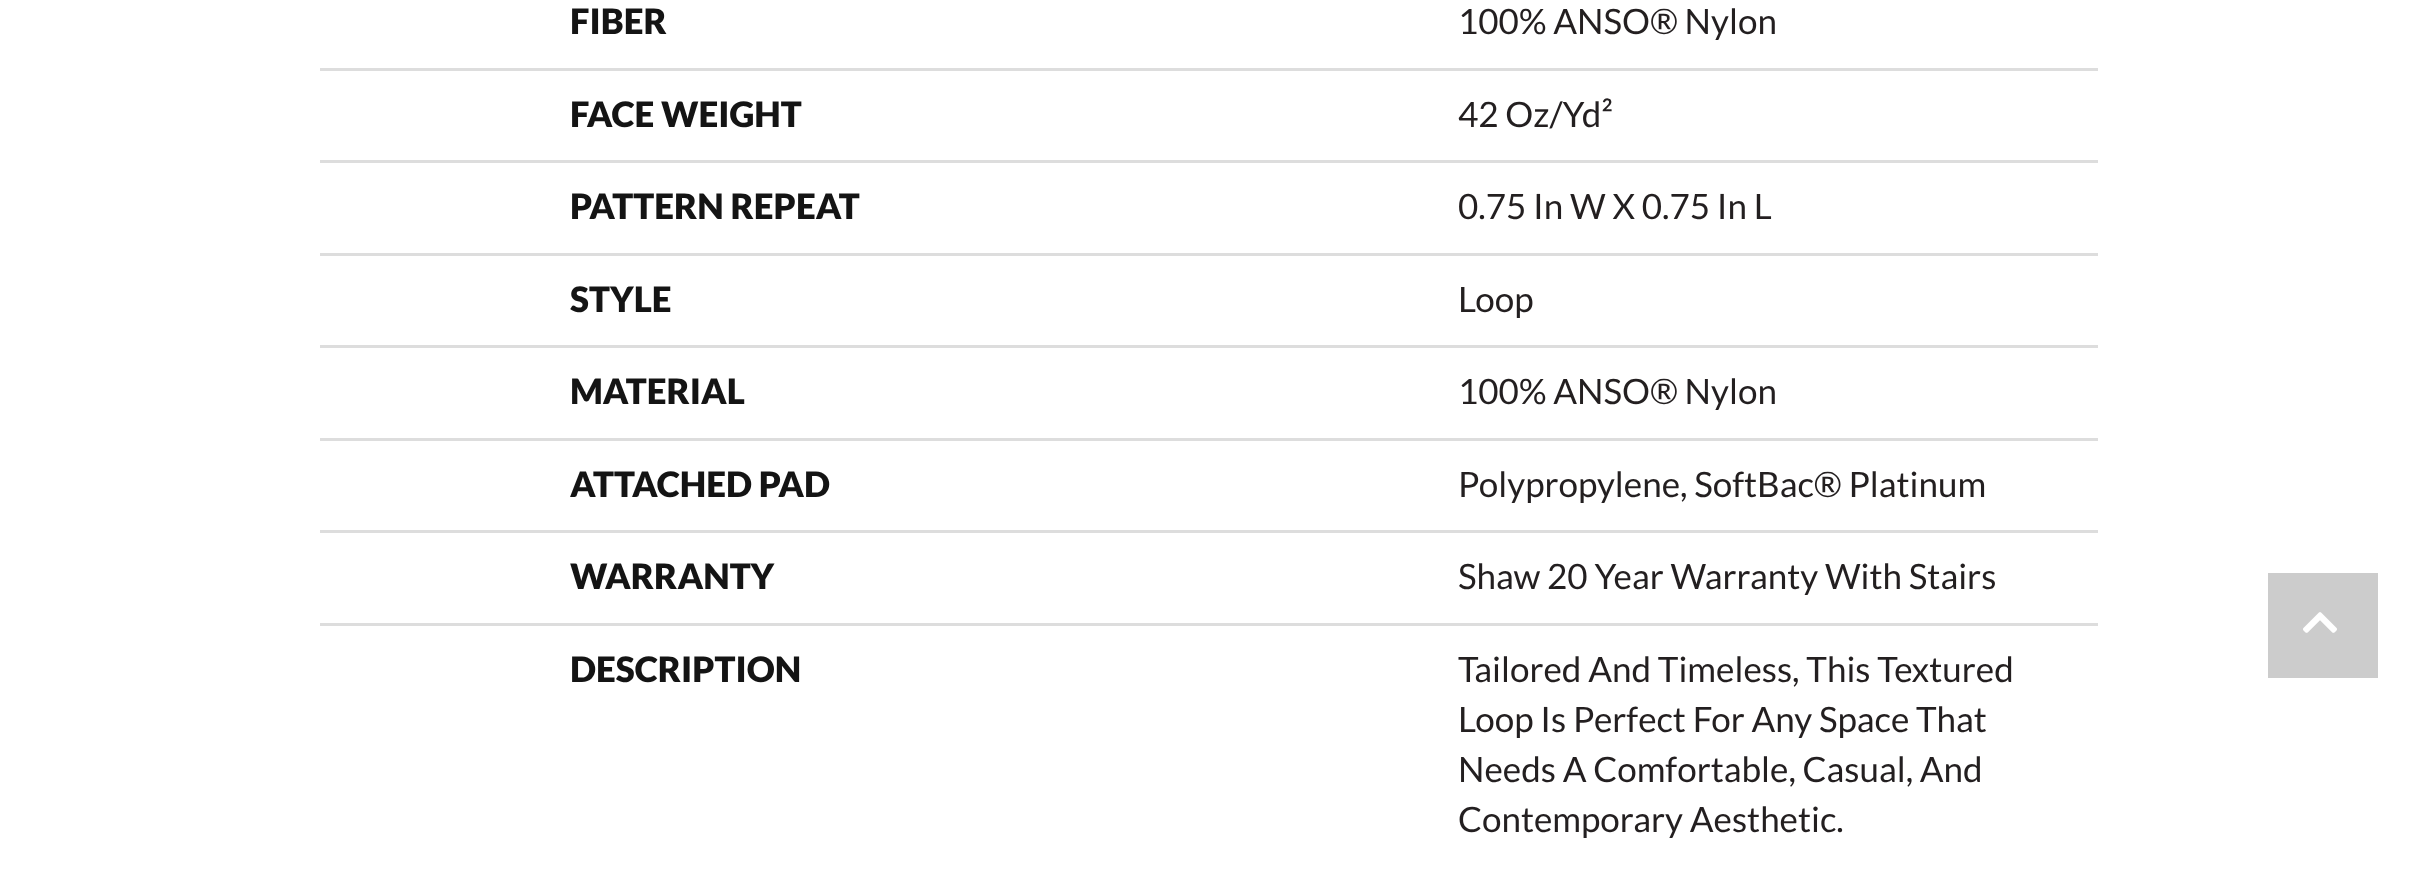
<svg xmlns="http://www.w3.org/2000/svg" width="2413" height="885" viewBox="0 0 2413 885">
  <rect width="100%" height="100%" fill="#ffffff"/>
  <text x="570" y="34" font-family="Lato" font-size="35" font-weight="900" fill="#141414">FIBER</text>
  <text x="1458" y="34" font-family="Lato" font-size="35" fill="#231f20">100% ANSO® Nylon</text>
  <text x="570" y="127" font-family="Lato" font-size="35" font-weight="900" fill="#141414">FACE WEIGHT</text>
  <rect x="320" y="68" width="1778" height="3" fill="#dddddd"/>
  <text x="1458" y="127" font-family="Lato" font-size="35" fill="#231f20">42 Oz/Yd²</text>
  <text x="570" y="219" font-family="Lato" font-size="35" font-weight="900" fill="#141414">PATTERN REPEAT</text>
  <rect x="320" y="160" width="1778" height="3" fill="#dddddd"/>
  <text x="1458" y="219" font-family="Lato" font-size="35" fill="#231f20">0.75 In W X 0.75 In L</text>
  <text x="570" y="312" font-family="Lato" font-size="35" font-weight="900" fill="#141414">STYLE</text>
  <rect x="320" y="253" width="1778" height="3" fill="#dddddd"/>
  <text x="1458" y="312" font-family="Lato" font-size="35" fill="#231f20">Loop</text>
  <text x="570" y="404" font-family="Lato" font-size="35" font-weight="900" fill="#141414">MATERIAL</text>
  <rect x="320" y="345" width="1778" height="3" fill="#dddddd"/>
  <text x="1458" y="404" font-family="Lato" font-size="35" fill="#231f20">100% ANSO® Nylon</text>
  <text x="570" y="497" font-family="Lato" font-size="35" font-weight="900" fill="#141414">ATTACHED PAD</text>
  <rect x="320" y="438" width="1778" height="3" fill="#dddddd"/>
  <text x="1458" y="497" font-family="Lato" font-size="35" fill="#231f20">Polypropylene, SoftBac® Platinum</text>
  <text x="570" y="589" font-family="Lato" font-size="35" font-weight="900" fill="#141414">WARRANTY</text>
  <rect x="320" y="530" width="1778" height="3" fill="#dddddd"/>
  <text x="1458" y="589" font-family="Lato" font-size="35" fill="#231f20">Shaw 20 Year Warranty With Stairs</text>
  <text x="570" y="682" font-family="Lato" font-size="35" font-weight="900" fill="#141414">DESCRIPTION</text>
  <rect x="320" y="623" width="1778" height="3" fill="#dddddd"/>
  <text x="1458" y="682" font-family="Lato" font-size="35" fill="#231f20">Tailored And Timeless, This Textured</text>
  <text x="1458" y="732" font-family="Lato" font-size="35" fill="#231f20">Loop Is Perfect For Any Space That</text>
  <text x="1458" y="782" font-family="Lato" font-size="35" fill="#231f20">Needs A Comfortable, Casual, And</text>
  <text x="1458" y="832" font-family="Lato" font-size="35" fill="#231f20">Contemporary Aesthetic.</text>
  <rect x="2268" y="573" width="110" height="105" fill="#cccccc"/>
  <image x="2303" y="612" width="34" height="21" href="img1.png"/>
</svg>
